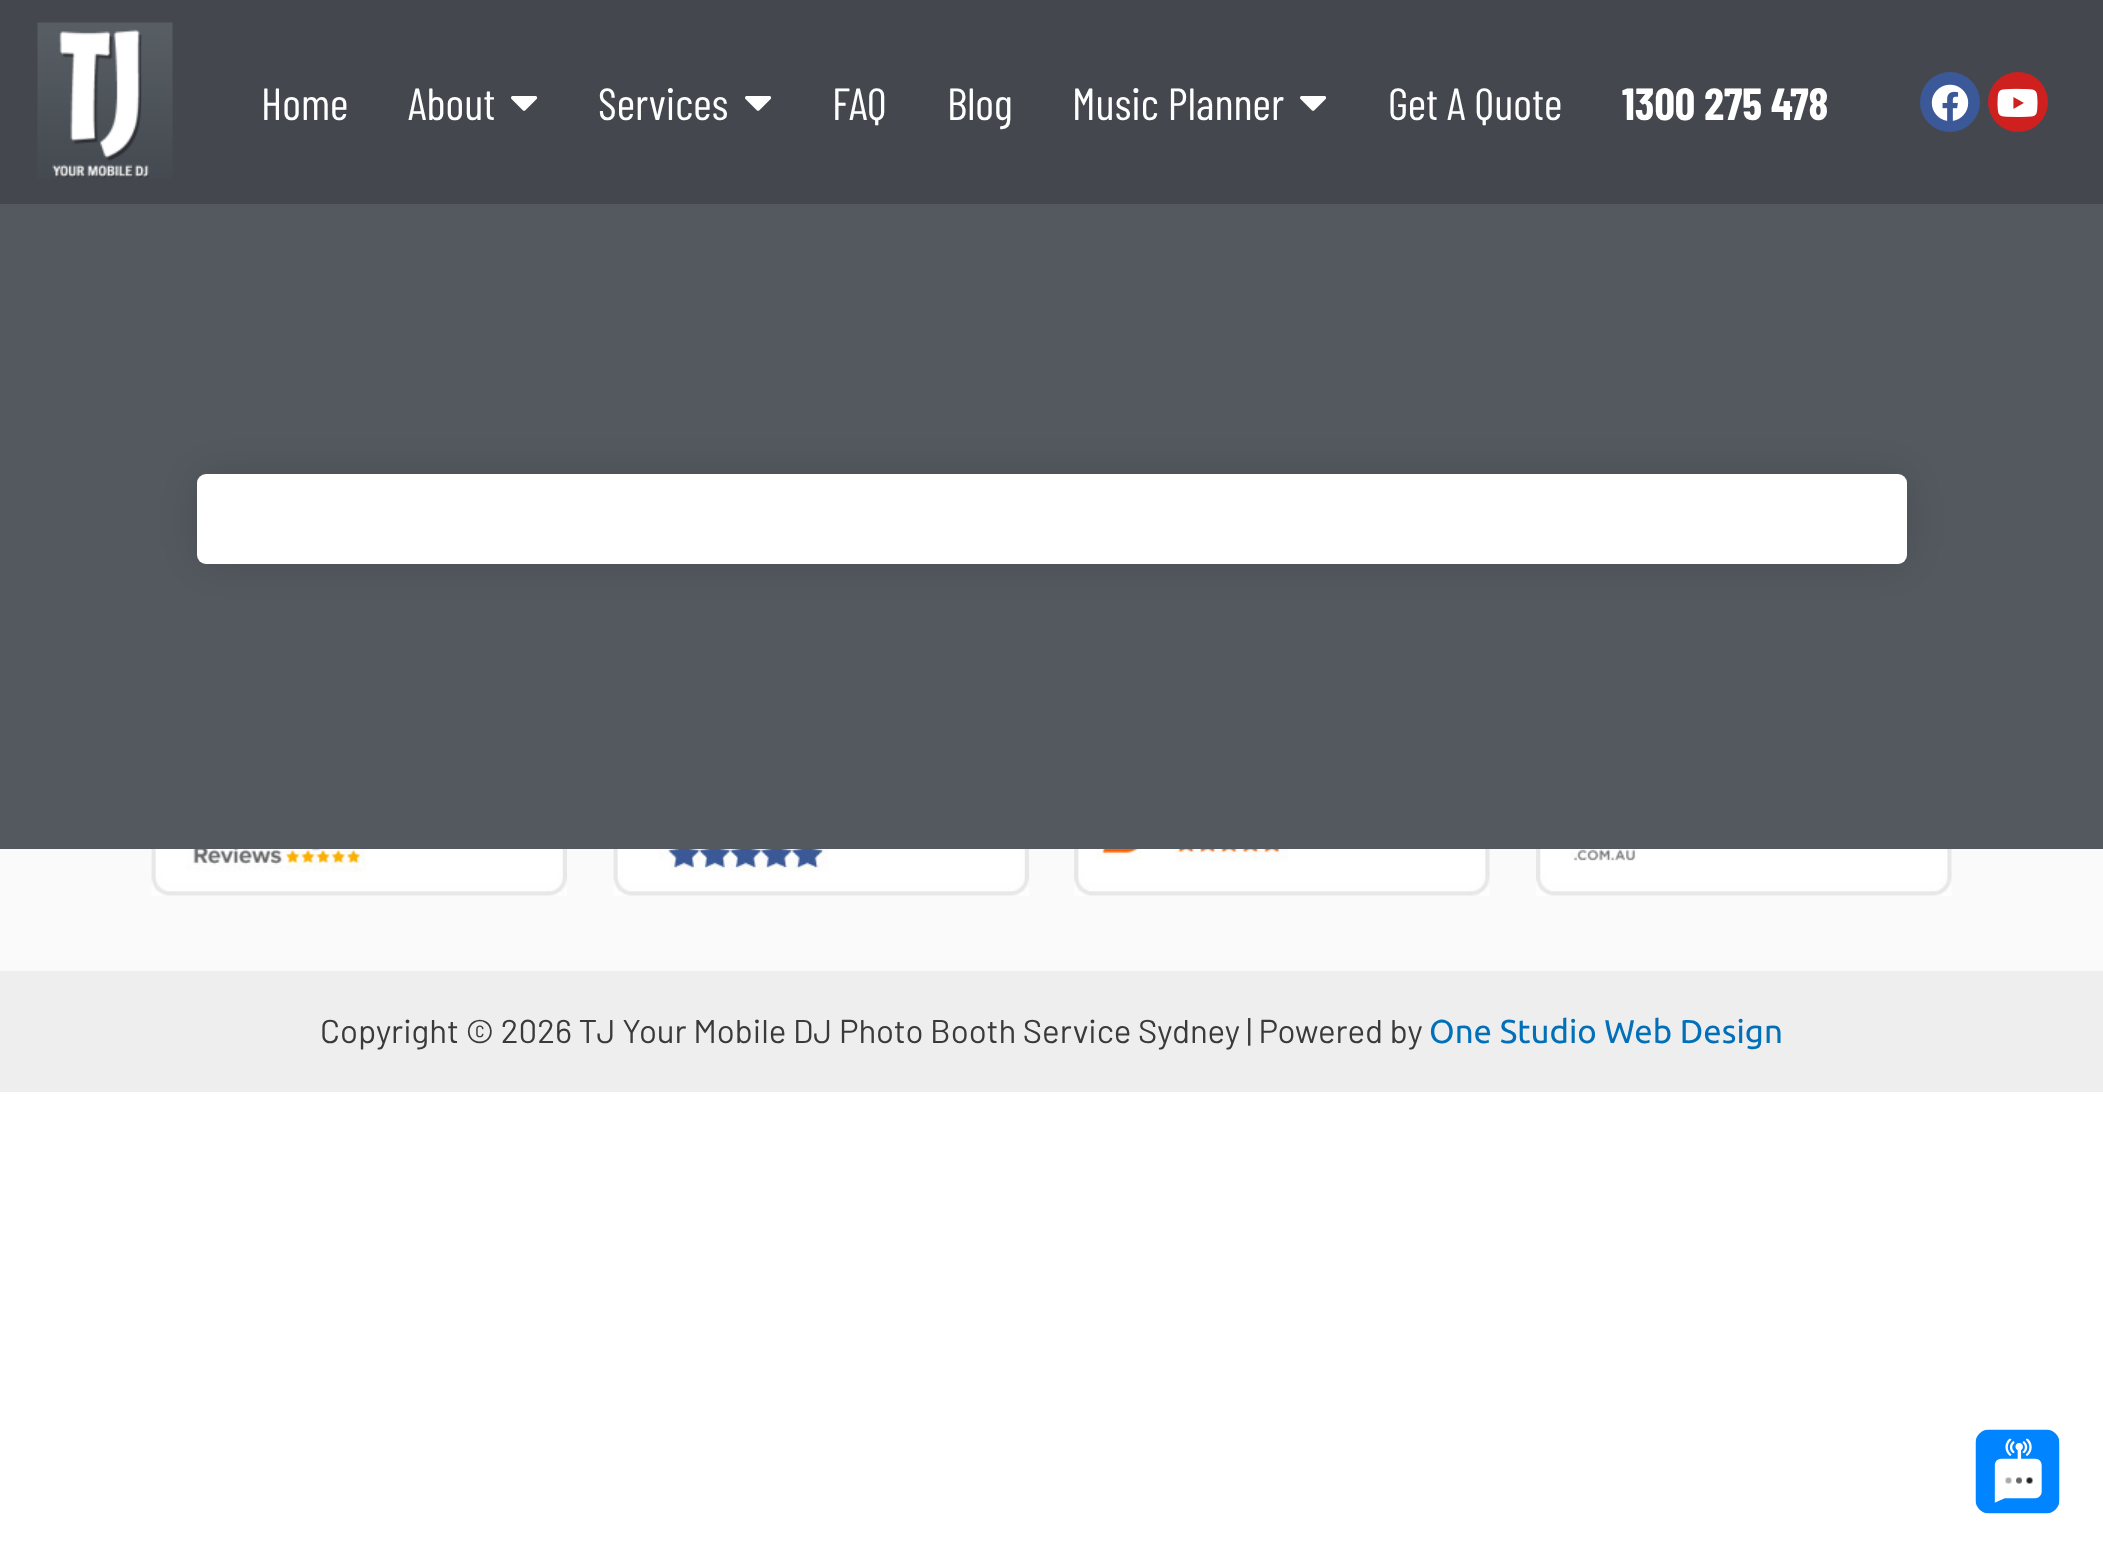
<svg xmlns="http://www.w3.org/2000/svg" width="2103" height="1554" viewBox="0 0 2103 1554">
  <defs>
    <filter id="blur1" x="-50%" y="-200%" width="200%" height="500%"><feGaussianBlur stdDeviation="22.5"/></filter>
  </defs>
  <rect width="100%" height="100%" fill="#ffffff"/>
  <rect x="0" y="0" width="2103" height="204" fill="#44484e"/>
  <image x="37" y="22" width="136" height="157" href="img1.png"/>
  <text x="261" y="120" font-family="Barlow Condensed" font-size="45" fill="#ffffff">Home</text>
  <text x="408" y="120" font-family="Barlow Condensed" font-size="45" fill="#ffffff">About</text>
  <image x="511" y="96" width="27" height="15" href="img2.png"/>
  <text x="598" y="120" font-family="Barlow Condensed" font-size="45" fill="#ffffff">Services</text>
  <image x="745" y="96" width="27" height="15" href="img2.png"/>
  <text x="832" y="120" font-family="Barlow Condensed" font-size="45" fill="#ffffff">FAQ</text>
  <text x="947" y="120" font-family="Barlow Condensed" font-size="45" fill="#ffffff">Blog</text>
  <text x="1072" y="120" font-family="Barlow Condensed" font-size="45" fill="#ffffff">Music Planner</text>
  <image x="1300" y="96" width="27" height="15" href="img2.png"/>
  <text x="1388" y="120" font-family="Barlow Condensed" font-size="45" fill="#ffffff">Get A Quote</text>
  <text x="1622" y="120" font-family="Barlow Condensed" font-size="45" font-weight="bold" fill="#ffffff">1300 275 478</text>
  <circle cx="1950" cy="102" r="30" fill="#3b5998"/>
  <image x="1931" y="84" width="38" height="37" href="img3.png"/>
  <circle cx="2018" cy="102" r="30" fill="#cd201f"/>
  <image x="1997" y="88" width="41" height="29" href="img4.png"/>
  <rect x="0" y="204" width="2103" height="645" fill="#54595f"/>
  <rect x="197" y="474" width="1710" height="90" rx="9" fill="#000000" fill-opacity="0.13" filter="url(#blur1)"/>
  <rect x="197" y="474" width="1710" height="90" rx="9" fill="#ffffff"/>
  <rect x="0" y="849" width="2103" height="122" fill="#fafafa"/>
  <image x="151" y="849" width="416" height="47" href="img5.png"/>
  <image x="613" y="849" width="416" height="47" href="img6.png"/>
  <image x="1074" y="849" width="416" height="47" href="img7.png"/>
  <image x="1536" y="849" width="416" height="47" href="img8.png"/>
  <rect x="0" y="971" width="2103" height="121" fill="#eeeeee"/>
  <text x="320" y="1043" font-family="Barlow" font-size="33" fill="#3a3a3a">Copyright © 2026 TJ Your Mobile DJ Photo Booth Service Sydney | Powered by</text>
  <text x="1429" y="1043" font-family="Ubuntu" font-size="33" fill="#0170b9">One Studio Web Design</text>
  <image x="1975" y="1429" width="85" height="85" href="img9.png"/>
</svg>
